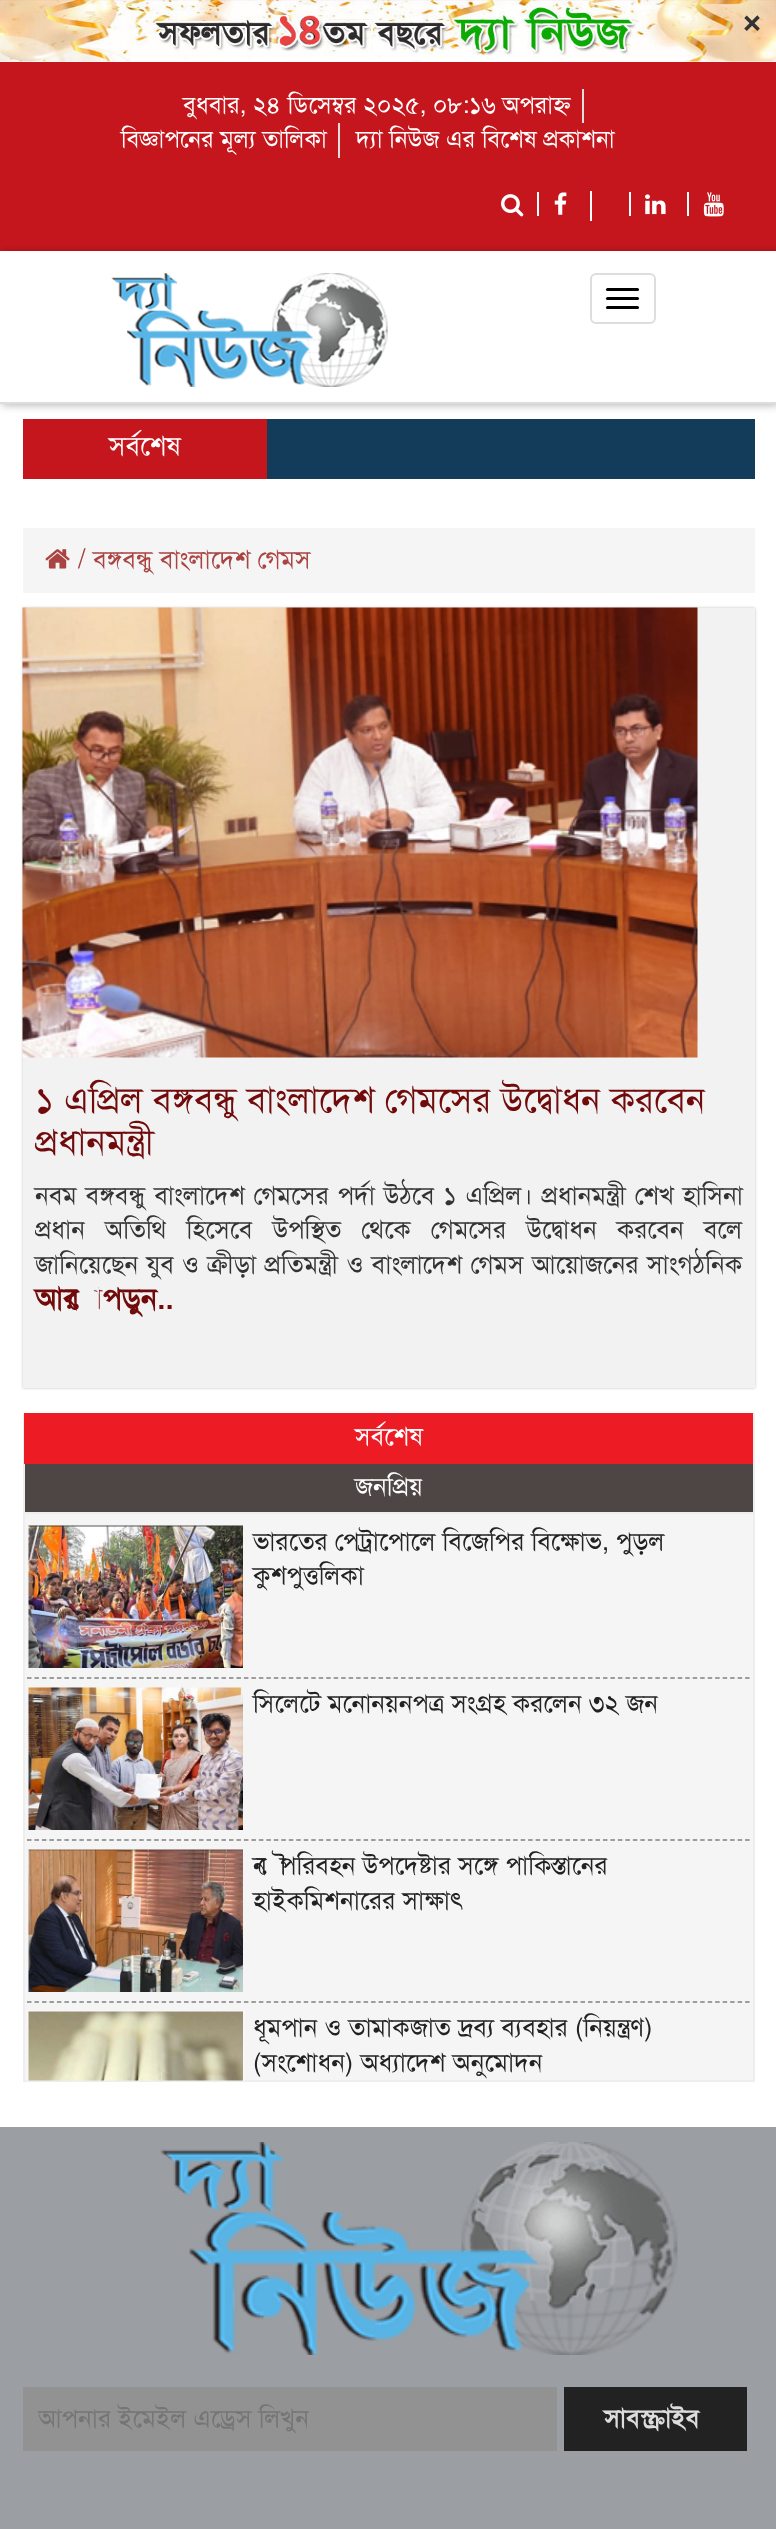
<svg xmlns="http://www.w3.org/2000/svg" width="776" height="2529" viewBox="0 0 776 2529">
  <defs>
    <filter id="blur1" x="-50%" y="-200%" width="200%" height="500%"><feGaussianBlur stdDeviation="4.5"/></filter>
    <filter id="blur2" x="-50%" y="-200%" width="200%" height="500%"><feGaussianBlur stdDeviation="1.5"/></filter>
    <clipPath id="clip1"><rect x="27" y="2003" width="723" height="78"/></clipPath>
    <clipPath id="clip2"><rect x="38" y="2402" width="504" height="34"/></clipPath>
  </defs>
  <rect width="100%" height="100%" fill="#ffffff"/>
  <image x="0" y="0" width="776" height="62" href="img1.png"/>
  <text x="741" y="32" font-family="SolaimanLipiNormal" font-size="36" font-weight="bold" fill="#333333">×</text>
  <rect x="0" y="62" width="776" height="189" fill="#c5161d"/>
  <rect x="582" y="89" width="2" height="34" fill="#dddddd"/>
  <text x="183" y="113" font-family="SolaimanLipiNormal" font-size="24" fill="#ffffff">বুধবার, ২৪ ডিসেম্বর ২০২৫, ০৮:১৬ অপরাহ্ন</text>
  <rect x="338" y="123" width="2" height="35" fill="#dddddd"/>
  <text x="121" y="147" font-family="SolaimanLipiNormal" font-size="24" fill="#ffffff">বিজ্ঞাপনের মূল্য তালিকা</text>
  <text x="356" y="147" font-family="SolaimanLipiNormal" font-size="24" fill="#ffffff">দ্যা নিউজ এর বিশেষ প্রকাশনা</text>
  <image x="501" y="194" width="23" height="23" href="img2.png"/>
  <rect x="537" y="192" width="2" height="24" fill="#ffffff"/>
  <image x="554" y="192" width="13" height="23" href="img3.png"/>
  <rect x="590" y="191" width="2" height="30" fill="#ffffff"/>
  <rect x="629" y="192" width="2" height="24" fill="#ffffff"/>
  <image x="645" y="194" width="21" height="21" href="img4.png"/>
  <rect x="687" y="192" width="2" height="24" fill="#ffffff"/>
  <image x="703" y="192" width="21" height="25" href="img5.png"/>
  <rect x="2" y="252" width="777" height="153" fill="#000000" fill-opacity="0.3" filter="url(#blur1)"/>
  <rect x="0" y="251" width="776" height="151" fill="#ffffff"/>
  <rect x="0" y="402" width="776" height="2" fill="#dddddd"/>
  <image x="111" y="273" width="277" height="114" href="img6.png"/>
  <rect x="591" y="274" width="64" height="49" rx="5" fill="none" stroke="#dddddd" stroke-width="2"/>
  <rect x="606" y="288" width="33" height="3" rx="1.5" fill="#000000"/>
  <rect x="606" y="297" width="33" height="3" rx="1.5" fill="#000000"/>
  <rect x="606" y="306" width="33" height="3" rx="1.5" fill="#000000"/>
  <rect x="23" y="419" width="244" height="60" fill="#c5161d"/>
  <text x="109" y="455" font-family="SolaimanLipiNormal" font-size="27" fill="#ffffff">সর্বশেষ</text>
  <rect x="267" y="419" width="488" height="60" fill="#133b5a"/>
  <rect x="23" y="528" width="732" height="65" fill="#f5f5f5"/>
  <image x="45" y="549" width="25" height="20" href="img7.png"/>
  <text x="78" y="568" font-family="SolaimanLipiNormal" font-size="27" fill="#a94442">/</text>
  <text x="93" y="568" font-family="SolaimanLipiNormal" font-size="25.5" fill="#a94442">বঙ্গবন্ধু বাংলাদেশ গেমস</text>
  <rect x="23" y="608" width="732" height="780" fill="#c1c0c0" filter="url(#blur2)"/>
  <rect x="23" y="608" width="732" height="780" fill="#f2f2f2"/>
  <image x="22" y="607" width="676" height="451" href="img8.png"/>
  <text x="35" y="1112" font-family="SolaimanLipiNormal" font-size="36" fill="#710b0b">১ এপ্রিল বঙ্গবন্ধু বাংলাদেশ গেমসের উদ্বোধন করবেন</text>
  <text x="35" y="1154" font-family="SolaimanLipiNormal" font-size="36" fill="#710b0b">প্রধানমন্ত্রী</text>
  <text x="35" y="1204" word-spacing="1.75" font-family="SolaimanLipiNormal" font-size="25.5" fill="#333333">নবম বঙ্গবন্ধু বাংলাদেশ গেমসের পর্দা উঠবে ১ এপ্রিল। প্রধানমন্ত্রী শেখ হাসিনা</text>
  <text x="35" y="1238" word-spacing="13" font-family="SolaimanLipiNormal" font-size="25.5" fill="#333333">প্রধান অতিথি হিসেবে উপস্থিত থেকে গেমসের উদ্বোধন করবেন বলে</text>
  <text x="35" y="1273" word-spacing="1.25" font-family="SolaimanLipiNormal" font-size="25.5" fill="#333333">জানিয়েছেন যুব ও ক্রীড়া প্রতিমন্ত্রী ও বাংলাদেশ গেমস আয়োজনের সাংগঠনিক</text>
  <text x="35" y="1309" font-family="SolaimanLipiNormal" font-size="30" font-weight="bold" fill="#710b0b">আরো পড়ুন..</text>
  <rect x="25" y="1464" width="728" height="48" fill="#4e4545"/>
  <rect x="753" y="1413" width="2" height="99" fill="#eeeeee"/>
  <rect x="23" y="1413" width="2" height="99" fill="#eeeeee"/>
  <rect x="24" y="1413" width="729" height="51" fill="#ed1b24"/>
  <text x="355" y="1445" font-family="SolaimanLipiNormal" font-size="25.5" fill="#ffffff">সর্বশেষ</text>
  <text x="355" y="1495" font-family="SolaimanLipiNormal" font-size="25.5" fill="#ffffff">জনপ্রিয়</text>
  <rect x="24" y="1513" width="730" height="568" fill="#f5f5f5" stroke="#eeeeee" stroke-width="2"/>
  <path d="M27 1678H750" fill="none" stroke="#808080" stroke-width="1.5" stroke-dasharray="4.5 2.98"/>
  <image x="28" y="1525" width="215" height="143" href="img9.png"/>
  <text x="253" y="1550" font-family="SolaimanLipiNormal" font-size="25.5" fill="#222222">ভারতের পেট্রাপোলে বিজেপির বিক্ষোভ, পুড়ল</text>
  <text x="253" y="1584" font-family="SolaimanLipiNormal" font-size="25.5" fill="#222222">কুশপুত্তলিকা</text>
  <path d="M27 1840H750" fill="none" stroke="#808080" stroke-width="1.5" stroke-dasharray="4.5 2.98"/>
  <image x="28" y="1687" width="215" height="143" href="img10.png"/>
  <text x="253" y="1712" font-family="SolaimanLipiNormal" font-size="25.5" fill="#222222">সিলেটে মনোনয়নপত্র সংগ্রহ করলেন ৩২ জন</text>
  <path d="M27 2002H750" fill="none" stroke="#808080" stroke-width="1.5" stroke-dasharray="4.5 2.98"/>
  <image x="28" y="1849" width="215" height="143" href="img11.png"/>
  <text x="253" y="1874" font-family="SolaimanLipiNormal" font-size="25.5" fill="#222222">নৌপরিবহন উপদেষ্টার সঙ্গে পাকিস্তানের</text>
  <text x="253" y="1909" font-family="SolaimanLipiNormal" font-size="25.5" fill="#222222">হাইকমিশনারের সাক্ষাৎ</text>
  <rect x="0" y="2127" width="776" height="402" fill="#9b9ea3"/>
  <g clip-path="url(#clip1)">
    <rect x="28" y="2011" width="216" height="144" fill="none" stroke="#f7f7f7" stroke-width="2"/>
  </g>
  <image x="28" y="2011" width="215" height="70" href="img12.png"/>
  <text x="253" y="2036" font-family="SolaimanLipiNormal" font-size="25.5" fill="#222222">ধূমপান ও তামাকজাত দ্রব্য ব্যবহার (নিয়ন্ত্রণ)</text>
  <text x="253" y="2071" font-family="SolaimanLipiNormal" font-size="25.5" fill="#222222">(সংশোধন) অধ্যাদেশ অনুমোদন</text>
  <image x="160" y="2142" width="518" height="213" href="img13.png"/>
  <rect x="23" y="2387" width="534" height="64" fill="#929292"/>
  <g clip-path="url(#clip2)">
    <text x="38" y="2427" font-family="SolaimanLipiNormal" font-size="25.5" fill="#757575">আপনার ইমেইল এড্রেস লিখুন</text>
  </g>
  <rect x="564" y="2387" width="183" height="64" fill="#222222"/>
  <text x="604" y="2427" font-family="SolaimanLipiNormal" font-size="25.5" font-weight="bold" fill="#dddddd">সাবস্ক্রাইব</text>
</svg>
